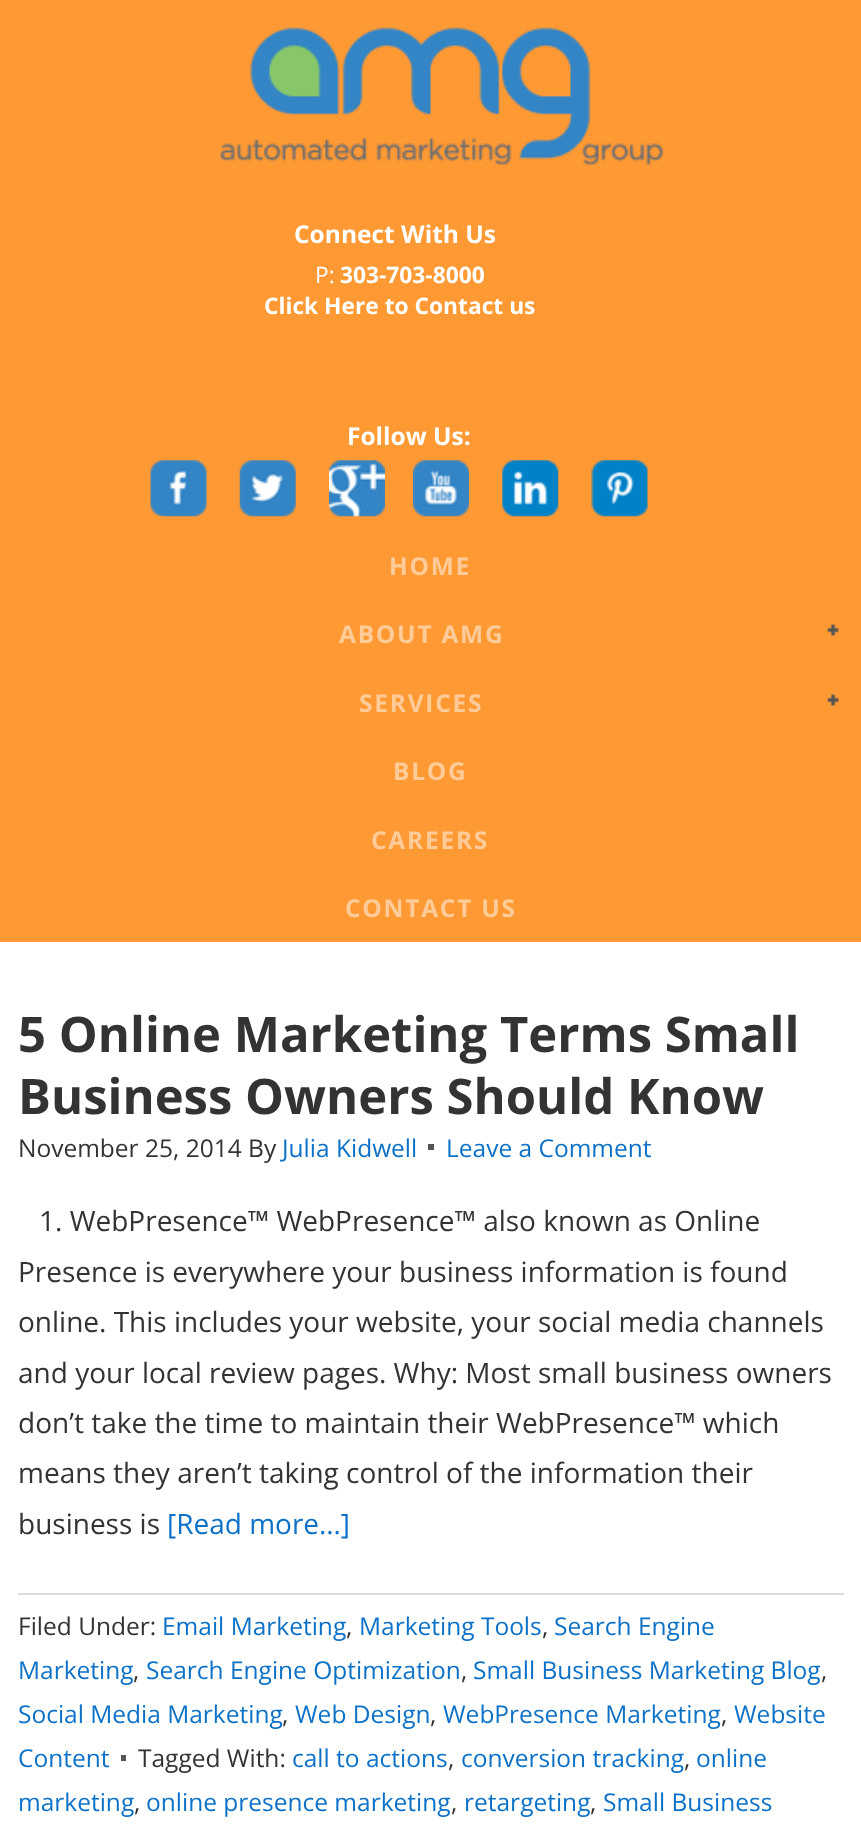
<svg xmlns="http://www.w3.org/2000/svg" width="861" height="1825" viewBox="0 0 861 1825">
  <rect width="100%" height="100%" fill="#ffffff"/>
  <rect x="0" y="0" width="861" height="942" fill="#ff9933"/>
  <image x="220" y="27" width="444" height="138" href="img1.png"/>
  <text x="294" y="243" font-family="Open Sans" font-size="24.5" font-weight="bold" fill="#ffffff">Connect With Us</text>
  <text x="315" y="283" font-family="Open Sans" font-size="22.75" fill="#ffffff">P:</text>
  <text x="340" y="283" font-family="Open Sans" font-size="22.75" font-weight="bold" fill="#ffffff">303-703-8000</text>
  <text x="264" y="314" font-family="Open Sans" font-size="22.75" font-weight="bold" fill="#ffffff">Click Here to Contact us</text>
  <text x="347" y="445" font-family="Open Sans" font-size="24.5" font-weight="bold" fill="#ffffff">Follow Us:</text>
  <image x="150" y="460" width="57" height="57" href="img2.png"/>
  <image x="239" y="460" width="57" height="57" href="img3.png"/>
  <image x="329" y="460" width="56" height="57" href="img4.png"/>
  <image x="413" y="460" width="56" height="57" href="img5.png"/>
  <image x="502" y="460" width="57" height="57" href="img6.png"/>
  <image x="591" y="460" width="57" height="57" href="img7.png"/>
  <text x="389" y="575" font-family="Open Sans" font-size="24.5" font-weight="bold" letter-spacing="1.75" fill="#ffcc99">HOME</text>
  <text x="339" y="643" font-family="Open Sans" font-size="24.5" font-weight="bold" letter-spacing="1.75" fill="#ffcc99">ABOUT AMG</text>
  <image x="827" y="624" width="12" height="12" href="img8.png"/>
  <text x="359" y="712" font-family="Open Sans" font-size="24.5" font-weight="bold" letter-spacing="1.75" fill="#ffcc99">SERVICES</text>
  <image x="827" y="694" width="12" height="12" href="img8.png"/>
  <text x="393" y="780" font-family="Open Sans" font-size="24.5" font-weight="bold" letter-spacing="1.75" fill="#ffcc99">BLOG</text>
  <text x="371" y="849" font-family="Open Sans" font-size="24.5" font-weight="bold" letter-spacing="1.75" fill="#ffcc99">CAREERS</text>
  <text x="345" y="917" font-family="Open Sans" font-size="24.5" font-weight="bold" letter-spacing="1.75" fill="#ffcc99">CONTACT US</text>
  <text x="18" y="1052" font-family="Open Sans" font-size="49" font-weight="bold" fill="#333333">5 Online Marketing Terms Small</text>
  <text x="18" y="1114" font-family="Open Sans" font-size="49" font-weight="bold" fill="#333333">Business Owners Should Know</text>
  <text x="18" y="1157" font-family="Open Sans" font-size="24.5" fill="#333333">November 25, 2014 By</text>
  <text x="282" y="1157" font-family="Open Sans" font-size="24.5" fill="#0d72c7">Julia Kidwell</text>
  <text x="446" y="1157" font-family="Open Sans" font-size="24.5" fill="#0d72c7">Leave a Comment</text>
  <rect x="428" y="1144" width="6" height="6" fill="#555555"/>
  <text x="39" y="1231" font-family="Open Sans" font-size="28" fill="#333333">1. WebPresence™ WebPresence™ also known as Online</text>
  <text x="18" y="1282" font-family="Open Sans" font-size="28" fill="#333333">Presence is everywhere your business information is found</text>
  <text x="18" y="1332" font-family="Open Sans" font-size="28" fill="#333333">online. This includes your website, your social media channels</text>
  <text x="18" y="1383" font-family="Open Sans" font-size="28" fill="#333333">and your local review pages. Why: Most small business owners</text>
  <text x="18" y="1433" font-family="Open Sans" font-size="28" fill="#333333">don’t take the time to maintain their WebPresence™ which</text>
  <text x="18" y="1483" font-family="Open Sans" font-size="28" fill="#333333">means they aren’t taking control of the information their</text>
  <text x="18" y="1534" font-family="Open Sans" font-size="28" fill="#333333">business is</text>
  <text x="167" y="1534" font-family="Open Sans" font-size="28" fill="#0d72c7">[Read more…]</text>
  <rect x="18" y="1593" width="826" height="2" fill="#dddddd"/>
  <text x="18" y="1635" font-family="Open Sans" font-size="24.5" fill="#333333">Filed Under:</text>
  <text x="162" y="1635" font-family="Open Sans" font-size="24.5" fill="#0d72c7">Email Marketing</text>
  <text x="346" y="1635" font-family="Open Sans" font-size="24.5" fill="#333333">,</text>
  <text x="359" y="1635" font-family="Open Sans" font-size="24.5" fill="#0d72c7">Marketing Tools</text>
  <text x="542" y="1635" font-family="Open Sans" font-size="24.5" fill="#333333">,</text>
  <text x="554" y="1635" font-family="Open Sans" font-size="24.5" fill="#0d72c7">Search Engine</text>
  <text x="18" y="1679" font-family="Open Sans" font-size="24.5" fill="#0d72c7">Marketing</text>
  <text x="133" y="1679" font-family="Open Sans" font-size="24.5" fill="#333333">,</text>
  <text x="146" y="1679" font-family="Open Sans" font-size="24.5" fill="#0d72c7">Search Engine Optimization</text>
  <text x="461" y="1679" font-family="Open Sans" font-size="24.5" fill="#333333">,</text>
  <text x="473" y="1679" font-family="Open Sans" font-size="24.5" fill="#0d72c7">Small Business Marketing Blog</text>
  <text x="821" y="1679" font-family="Open Sans" font-size="24.5" fill="#333333">,</text>
  <text x="18" y="1723" font-family="Open Sans" font-size="24.5" fill="#0d72c7">Social Media Marketing</text>
  <text x="282" y="1723" font-family="Open Sans" font-size="24.5" fill="#333333">,</text>
  <text x="295" y="1723" font-family="Open Sans" font-size="24.5" fill="#0d72c7">Web Design</text>
  <text x="430" y="1723" font-family="Open Sans" font-size="24.5" fill="#333333">,</text>
  <text x="443" y="1723" font-family="Open Sans" font-size="24.5" fill="#0d72c7">WebPresence Marketing</text>
  <text x="721" y="1723" font-family="Open Sans" font-size="24.5" fill="#333333">,</text>
  <text x="734" y="1723" font-family="Open Sans" font-size="24.5" fill="#0d72c7">Website</text>
  <text x="18" y="1767" font-family="Open Sans" font-size="24.5" fill="#0d72c7">Content</text>
  <text x="138" y="1767" font-family="Open Sans" font-size="24.5" fill="#333333">Tagged With:</text>
  <rect x="121" y="1755" width="5" height="6" fill="#555555"/>
  <text x="292" y="1767" font-family="Open Sans" font-size="24.5" fill="#0d72c7">call to actions</text>
  <text x="448" y="1767" font-family="Open Sans" font-size="24.5" fill="#333333">,</text>
  <text x="461" y="1767" font-family="Open Sans" font-size="24.5" fill="#0d72c7">conversion tracking</text>
  <text x="684" y="1767" font-family="Open Sans" font-size="24.5" fill="#333333">,</text>
  <text x="696" y="1767" font-family="Open Sans" font-size="24.5" fill="#0d72c7">online</text>
  <text x="18" y="1811" font-family="Open Sans" font-size="24.5" fill="#0d72c7">marketing</text>
  <text x="134" y="1811" font-family="Open Sans" font-size="24.5" fill="#333333">,</text>
  <text x="146" y="1811" font-family="Open Sans" font-size="24.5" fill="#0d72c7">online presence marketing</text>
  <text x="451" y="1811" font-family="Open Sans" font-size="24.5" fill="#333333">,</text>
  <text x="464" y="1811" font-family="Open Sans" font-size="24.5" fill="#0d72c7">retargeting</text>
  <text x="590" y="1811" font-family="Open Sans" font-size="24.5" fill="#333333">,</text>
  <text x="603" y="1811" font-family="Open Sans" font-size="24.5" fill="#0d72c7">Small Business</text>
</svg>
